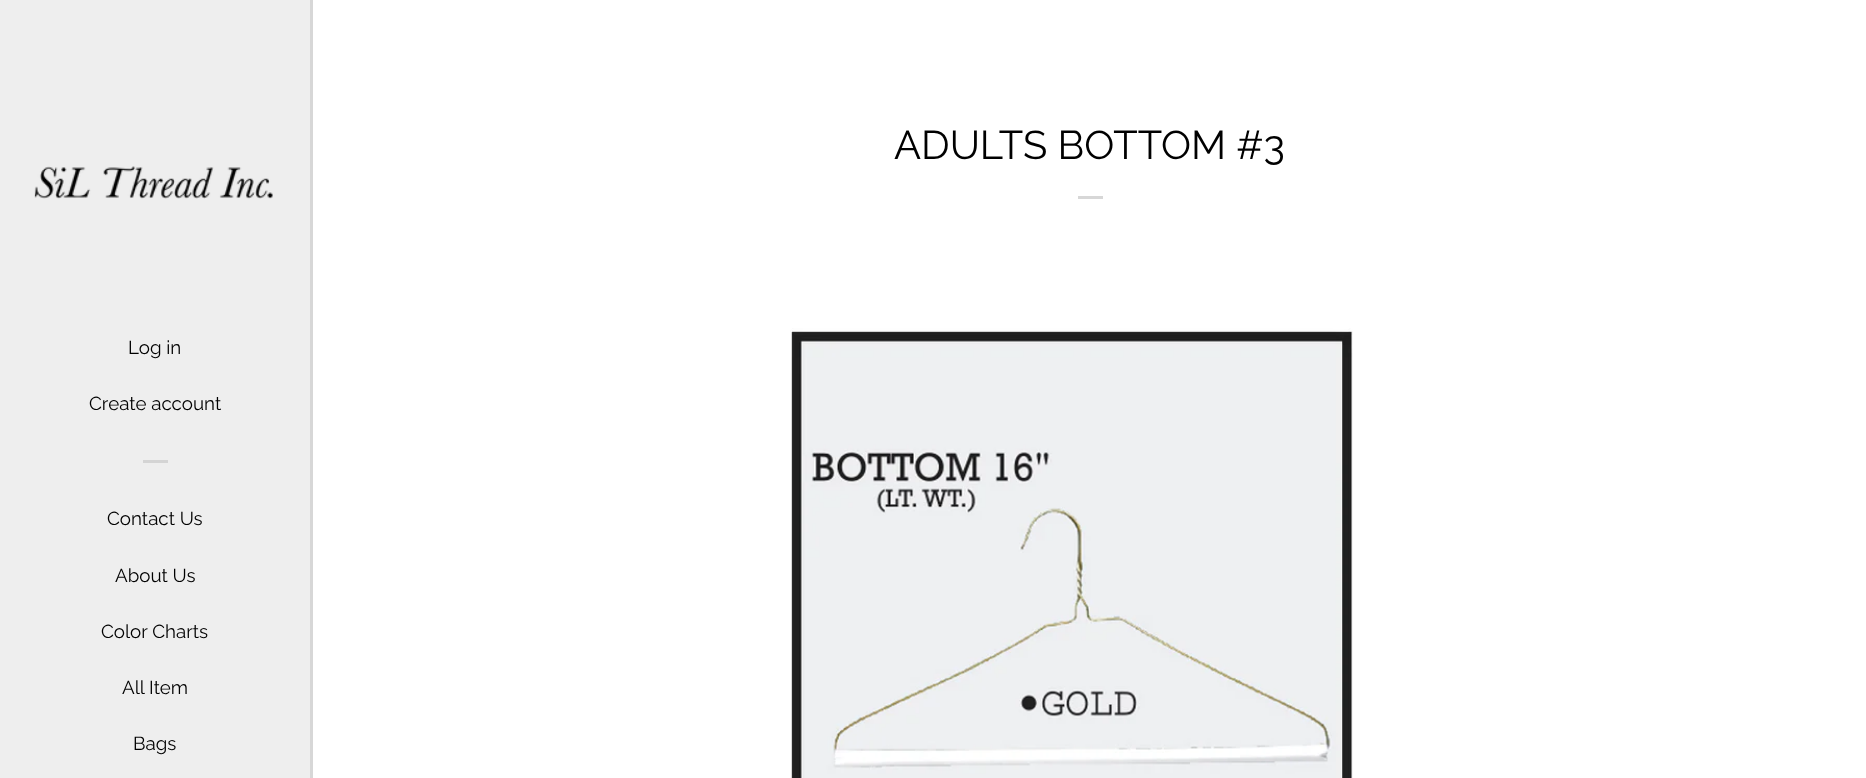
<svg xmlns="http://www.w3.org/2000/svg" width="1866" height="778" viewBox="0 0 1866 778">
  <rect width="100%" height="100%" fill="#eeeeee"/>
  <rect x="313" y="0" width="1553" height="778" fill="#ffffff"/>
  <text x="894" y="159" font-family="Raleway" font-size="40" font-weight="100" fill="#000000">ADULTS BOTTOM #3</text>
  <rect x="1078" y="196" width="25" height="3" fill="#d7d7d7"/>
  <image x="790" y="328" width="563" height="450" href="img1.png"/>
  <rect x="310" y="0" width="3" height="778" fill="#d7d7d7"/>
  <image x="34" y="166" width="239" height="33" href="img2.png"/>
  <text x="128" y="354" font-family="Raleway" font-size="18.75" font-weight="100" fill="#000000">Log in</text>
  <text x="89" y="410" font-family="Raleway" font-size="18.75" font-weight="100" fill="#000000">Create account</text>
  <rect x="143" y="460" width="25" height="3" fill="#d4d4d4"/>
  <text x="107" y="525" font-family="Raleway" font-size="18.75" font-weight="100" fill="#000000">Contact Us</text>
  <text x="115" y="582" font-family="Raleway" font-size="18.75" font-weight="100" fill="#000000">About Us</text>
  <text x="101" y="638" font-family="Raleway" font-size="18.75" font-weight="100" fill="#000000">Color Charts</text>
  <text x="122" y="694" font-family="Raleway" font-size="18.75" font-weight="100" fill="#000000">All Item</text>
  <text x="133" y="750" font-family="Raleway" font-size="18.75" font-weight="100" fill="#000000">Bags</text>
</svg>
